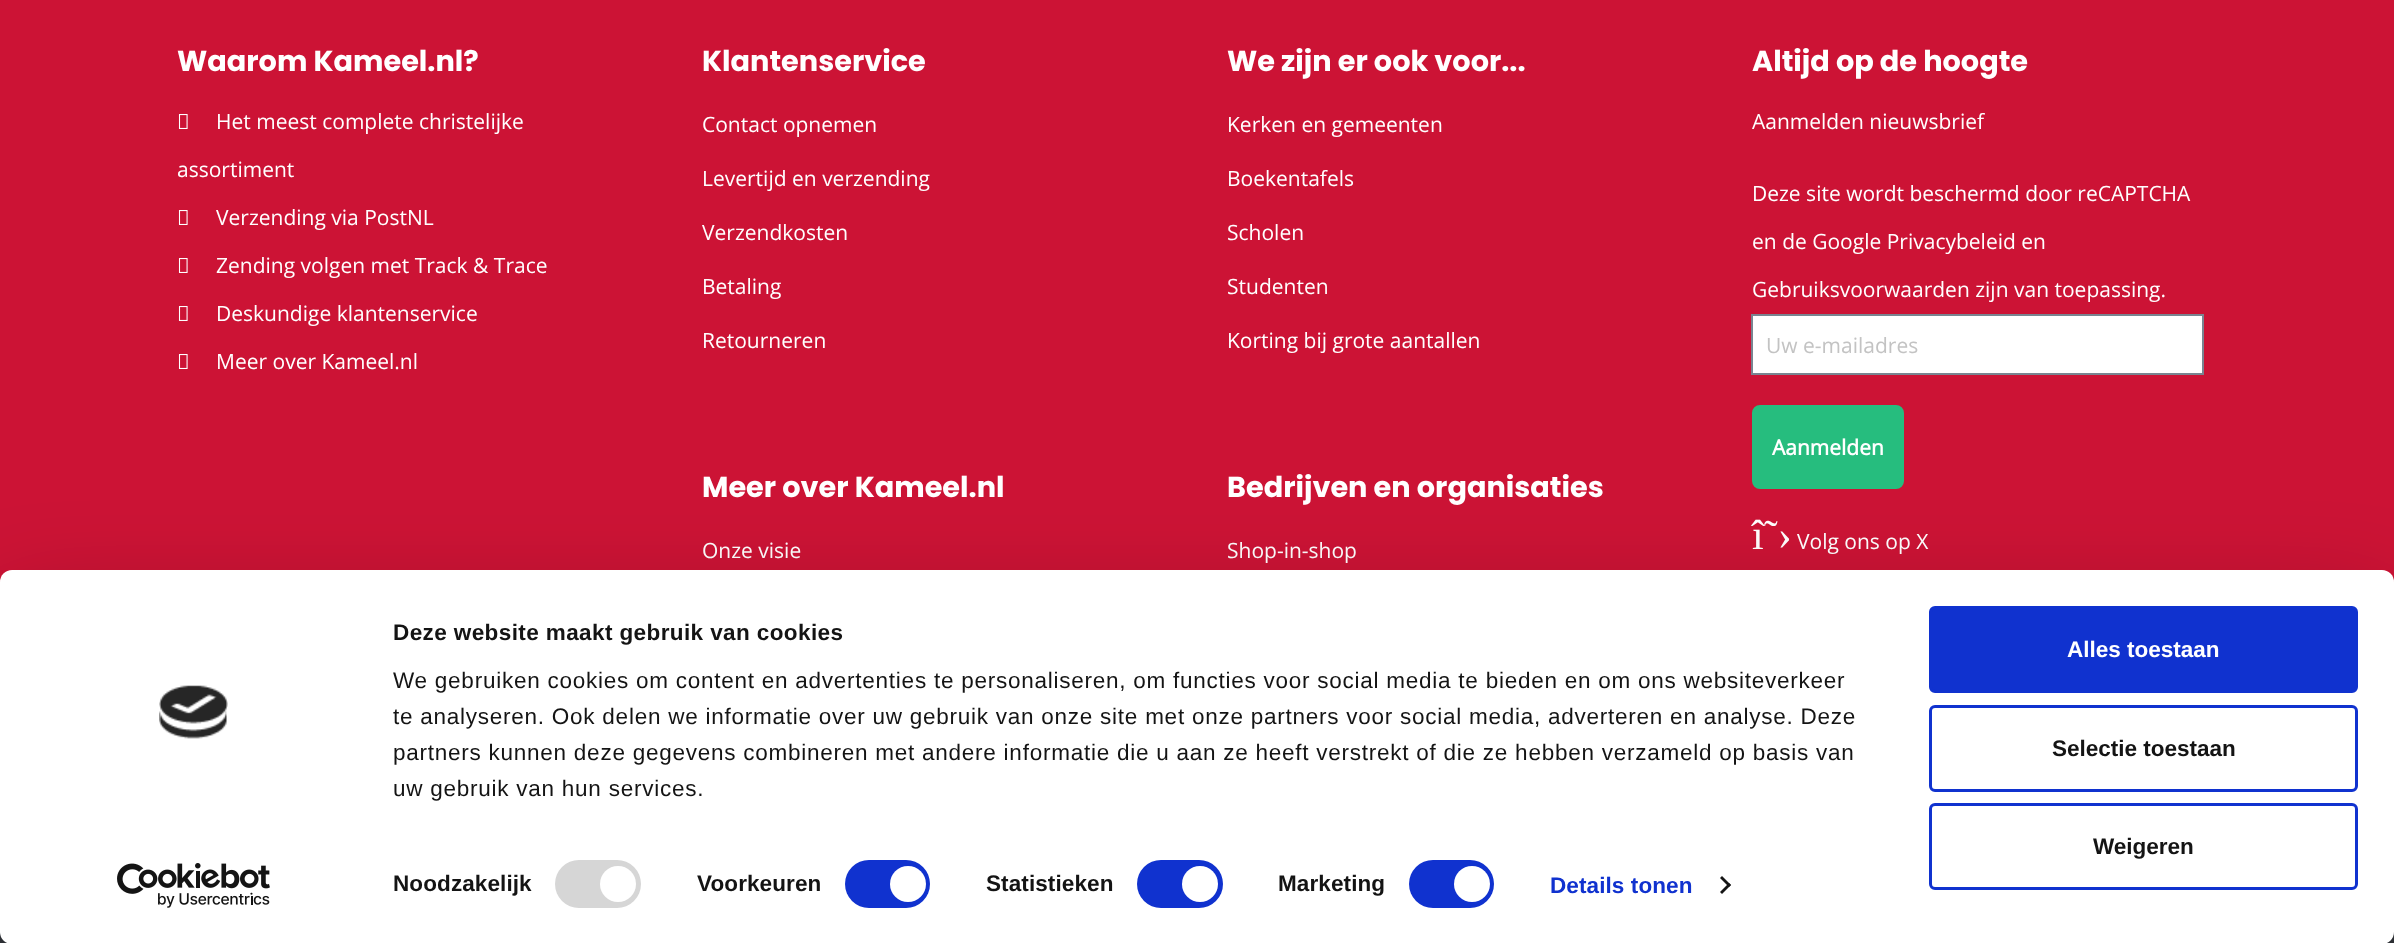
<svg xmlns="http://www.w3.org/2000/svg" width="2394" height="943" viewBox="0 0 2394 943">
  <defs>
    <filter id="blur1" x="-50%" y="-200%" width="200%" height="500%"><feGaussianBlur stdDeviation="52.5"/></filter>
  </defs>
  <rect width="100%" height="100%" fill="#cc1335"/>
  <text x="177" y="71" font-family="Poppins" font-size="28.75" font-weight="bold" fill="#ffffff">Waarom Kameel.nl?</text>
  <image x="178" y="114" width="10" height="15" href="img1.png"/>
  <text x="216" y="129" font-family="Open Sans" font-size="21" fill="#ffffff">Het meest complete christelijke</text>
  <text x="177" y="177" font-family="Open Sans" font-size="21" fill="#ffffff">assortiment</text>
  <image x="178" y="210" width="10" height="15" href="img1.png"/>
  <text x="216" y="225" font-family="Open Sans" font-size="21" fill="#ffffff">Verzending via PostNL</text>
  <image x="178" y="258" width="10" height="15" href="img1.png"/>
  <text x="216" y="273" font-family="Open Sans" font-size="21" fill="#ffffff">Zending volgen met Track &amp; Trace</text>
  <image x="178" y="306" width="10" height="15" href="img1.png"/>
  <text x="216" y="321" font-family="Open Sans" font-size="21" fill="#ffffff">Deskundige klantenservice</text>
  <image x="178" y="354" width="10" height="15" href="img1.png"/>
  <text x="216" y="369" font-family="Open Sans" font-size="21" fill="#ffffff">Meer over Kameel.nl</text>
  <text x="702" y="71" font-family="Poppins" font-size="28.75" font-weight="bold" fill="#ffffff">Klantenservice</text>
  <text x="702" y="132" font-family="Open Sans" font-size="21" fill="#ffffff">Contact opnemen</text>
  <text x="702" y="186" font-family="Open Sans" font-size="21" fill="#ffffff">Levertijd en verzending</text>
  <text x="702" y="240" font-family="Open Sans" font-size="21" fill="#ffffff">Verzendkosten</text>
  <text x="702" y="294" font-family="Open Sans" font-size="21" fill="#ffffff">Betaling</text>
  <text x="702" y="348" font-family="Open Sans" font-size="21" fill="#ffffff">Retourneren</text>
  <text x="702" y="497" font-family="Poppins" font-size="28.75" font-weight="bold" fill="#ffffff">Meer over Kameel.nl</text>
  <text x="702" y="558" font-family="Open Sans" font-size="21" fill="#ffffff">Onze visie</text>
  <text x="1227" y="71" font-family="Poppins" font-size="28.75" font-weight="bold" fill="#ffffff">We zijn er ook voor...</text>
  <text x="1227" y="132" font-family="Open Sans" font-size="21" fill="#ffffff">Kerken en gemeenten</text>
  <text x="1227" y="186" font-family="Open Sans" font-size="21" fill="#ffffff">Boekentafels</text>
  <text x="1227" y="240" font-family="Open Sans" font-size="21" fill="#ffffff">Scholen</text>
  <text x="1227" y="294" font-family="Open Sans" font-size="21" fill="#ffffff">Studenten</text>
  <text x="1227" y="348" font-family="Open Sans" font-size="21" fill="#ffffff">Korting bij grote aantallen</text>
  <text x="1227" y="497" font-family="Poppins" font-size="28.75" font-weight="bold" fill="#ffffff">Bedrijven en organisaties</text>
  <text x="1227" y="558" font-family="Open Sans" font-size="21" fill="#ffffff">Shop-in-shop</text>
  <text x="1752" y="71" font-family="Poppins" font-size="28.75" font-weight="bold" fill="#ffffff">Altijd op de hoogte</text>
  <text x="1752" y="129" font-family="Open Sans" font-size="21" fill="#ffffff">Aanmelden nieuwsbrief</text>
  <text x="1752" y="201" font-family="Open Sans" font-size="21" fill="#ffffff">Deze site wordt beschermd door reCAPTCHA</text>
  <text x="1752" y="249" font-family="Open Sans" font-size="21" fill="#ffffff">en de Google Privacybeleid en</text>
  <text x="1752" y="297" font-family="Open Sans" font-size="21" fill="#ffffff">Gebruiksvoorwaarden zijn van toepassing.</text>
  <rect x="1752" y="315" width="451" height="59" fill="#ffffff" stroke="#798490" stroke-width="2"/>
  <text x="1766" y="353" font-family="Open Sans" font-size="21" fill="#c3c3c3">Uw e-mailadres</text>
  <rect x="1753" y="406" width="150" height="82" rx="7" fill="#26bd7e" stroke="#26bd7e" stroke-width="2"/>
  <text x="1772" y="455" font-family="Open Sans" font-size="21" font-weight="bold" fill="#ffffff">Aanmelden</text>
  <text x="1752" y="549" font-family="Liberation Serif" font-size="42" fill="#ffffff">î˜›</text>
  <text x="1797" y="549" font-family="Open Sans" font-size="21" fill="#ffffff">Volg ons op X</text>
  <rect x="0" y="932" width="2394" height="11" fill="#33363c"/>
  <rect x="0" y="615" width="2394" height="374" rx="12" fill="#000000" fill-opacity="0.3" filter="url(#blur1)"/>
  <rect x="0" y="570" width="2394" height="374" rx="12" fill="#ffffff"/>
  <image x="159" y="685" width="69" height="54" href="img2.png"/>
  <image x="117" y="863" width="153" height="45" href="img3.png"/>
  <text x="393" y="640" font-family="Liberation Sans" font-size="22.5" font-weight="bold" letter-spacing="0.4" fill="#141414">Deze website maakt gebruik van cookies</text>
  <text x="393" y="688" font-family="Liberation Sans" font-size="22.5" letter-spacing="0.75" fill="#141414">We gebruiken cookies om content en advertenties te personaliseren, om functies voor social media te bieden en om ons websiteverkeer</text>
  <text x="393" y="724" font-family="Liberation Sans" font-size="22.5" letter-spacing="0.75" fill="#141414">te analyseren. Ook delen we informatie over uw gebruik van onze site met onze partners voor social media, adverteren en analyse. Deze</text>
  <text x="393" y="760" font-family="Liberation Sans" font-size="22.5" letter-spacing="0.75" fill="#141414">partners kunnen deze gegevens combineren met andere informatie die u aan ze heeft verstrekt of die ze hebben verzameld op basis van</text>
  <text x="393" y="796" font-family="Liberation Sans" font-size="22.5" letter-spacing="0.75" fill="#141414">uw gebruik van hun services.</text>
  <text x="393" y="891" font-family="Liberation Sans" font-size="22.5" font-weight="bold" letter-spacing="0.1" fill="#141414">Noodzakelijk</text>
  <rect x="555" y="860" width="86" height="48" rx="24" fill="#d6d6d6"/>
  <circle cx="618" cy="884" r="18" fill="#ffffff"/>
  <text x="697" y="891" font-family="Liberation Sans" font-size="22.5" font-weight="bold" letter-spacing="0.1" fill="#141414">Voorkeuren</text>
  <rect x="845" y="860" width="85" height="48" rx="24" fill="#1032cf"/>
  <circle cx="908" cy="884" r="18" fill="#ffffff"/>
  <text x="986" y="891" font-family="Liberation Sans" font-size="22.5" font-weight="bold" letter-spacing="0.1" fill="#141414">Statistieken</text>
  <rect x="1137" y="860" width="86" height="48" rx="24" fill="#1032cf"/>
  <circle cx="1200" cy="884" r="18" fill="#ffffff"/>
  <text x="1278" y="891" font-family="Liberation Sans" font-size="22.5" font-weight="bold" letter-spacing="0.1" fill="#141414">Marketing</text>
  <rect x="1409" y="860" width="85" height="48" rx="24" fill="#1032cf"/>
  <circle cx="1472" cy="884" r="18" fill="#ffffff"/>
  <text x="1550" y="893" font-family="Liberation Sans" font-size="22.5" font-weight="bold" letter-spacing="0.1" fill="#1032cf">Details tonen</text>
  <path d="M1722 876L1731 885L1729 887L1720 878Z" fill="#141414"/>
  <path d="M1729 883L1731 885L1722 894L1720 892Z" fill="#141414"/>
  <rect x="1930.5" y="607.5" width="426" height="84" rx="4.5" fill="#1032cf" stroke="#1032cf" stroke-width="3"/>
  <text x="2067" y="657" font-family="Liberation Sans" font-size="22.5" font-weight="bold" fill="#ffffff">Alles toestaan</text>
  <rect x="1930.5" y="706.5" width="426" height="84" rx="4.5" fill="none" stroke="#1032cf" stroke-width="3"/>
  <text x="2052" y="756" font-family="Liberation Sans" font-size="22.5" font-weight="bold" fill="#141414">Selectie toestaan</text>
  <rect x="1930.5" y="804.5" width="426" height="84" rx="4.5" fill="none" stroke="#1032cf" stroke-width="3"/>
  <text x="2093" y="854" font-family="Liberation Sans" font-size="22.5" font-weight="bold" fill="#141414">Weigeren</text>
</svg>
